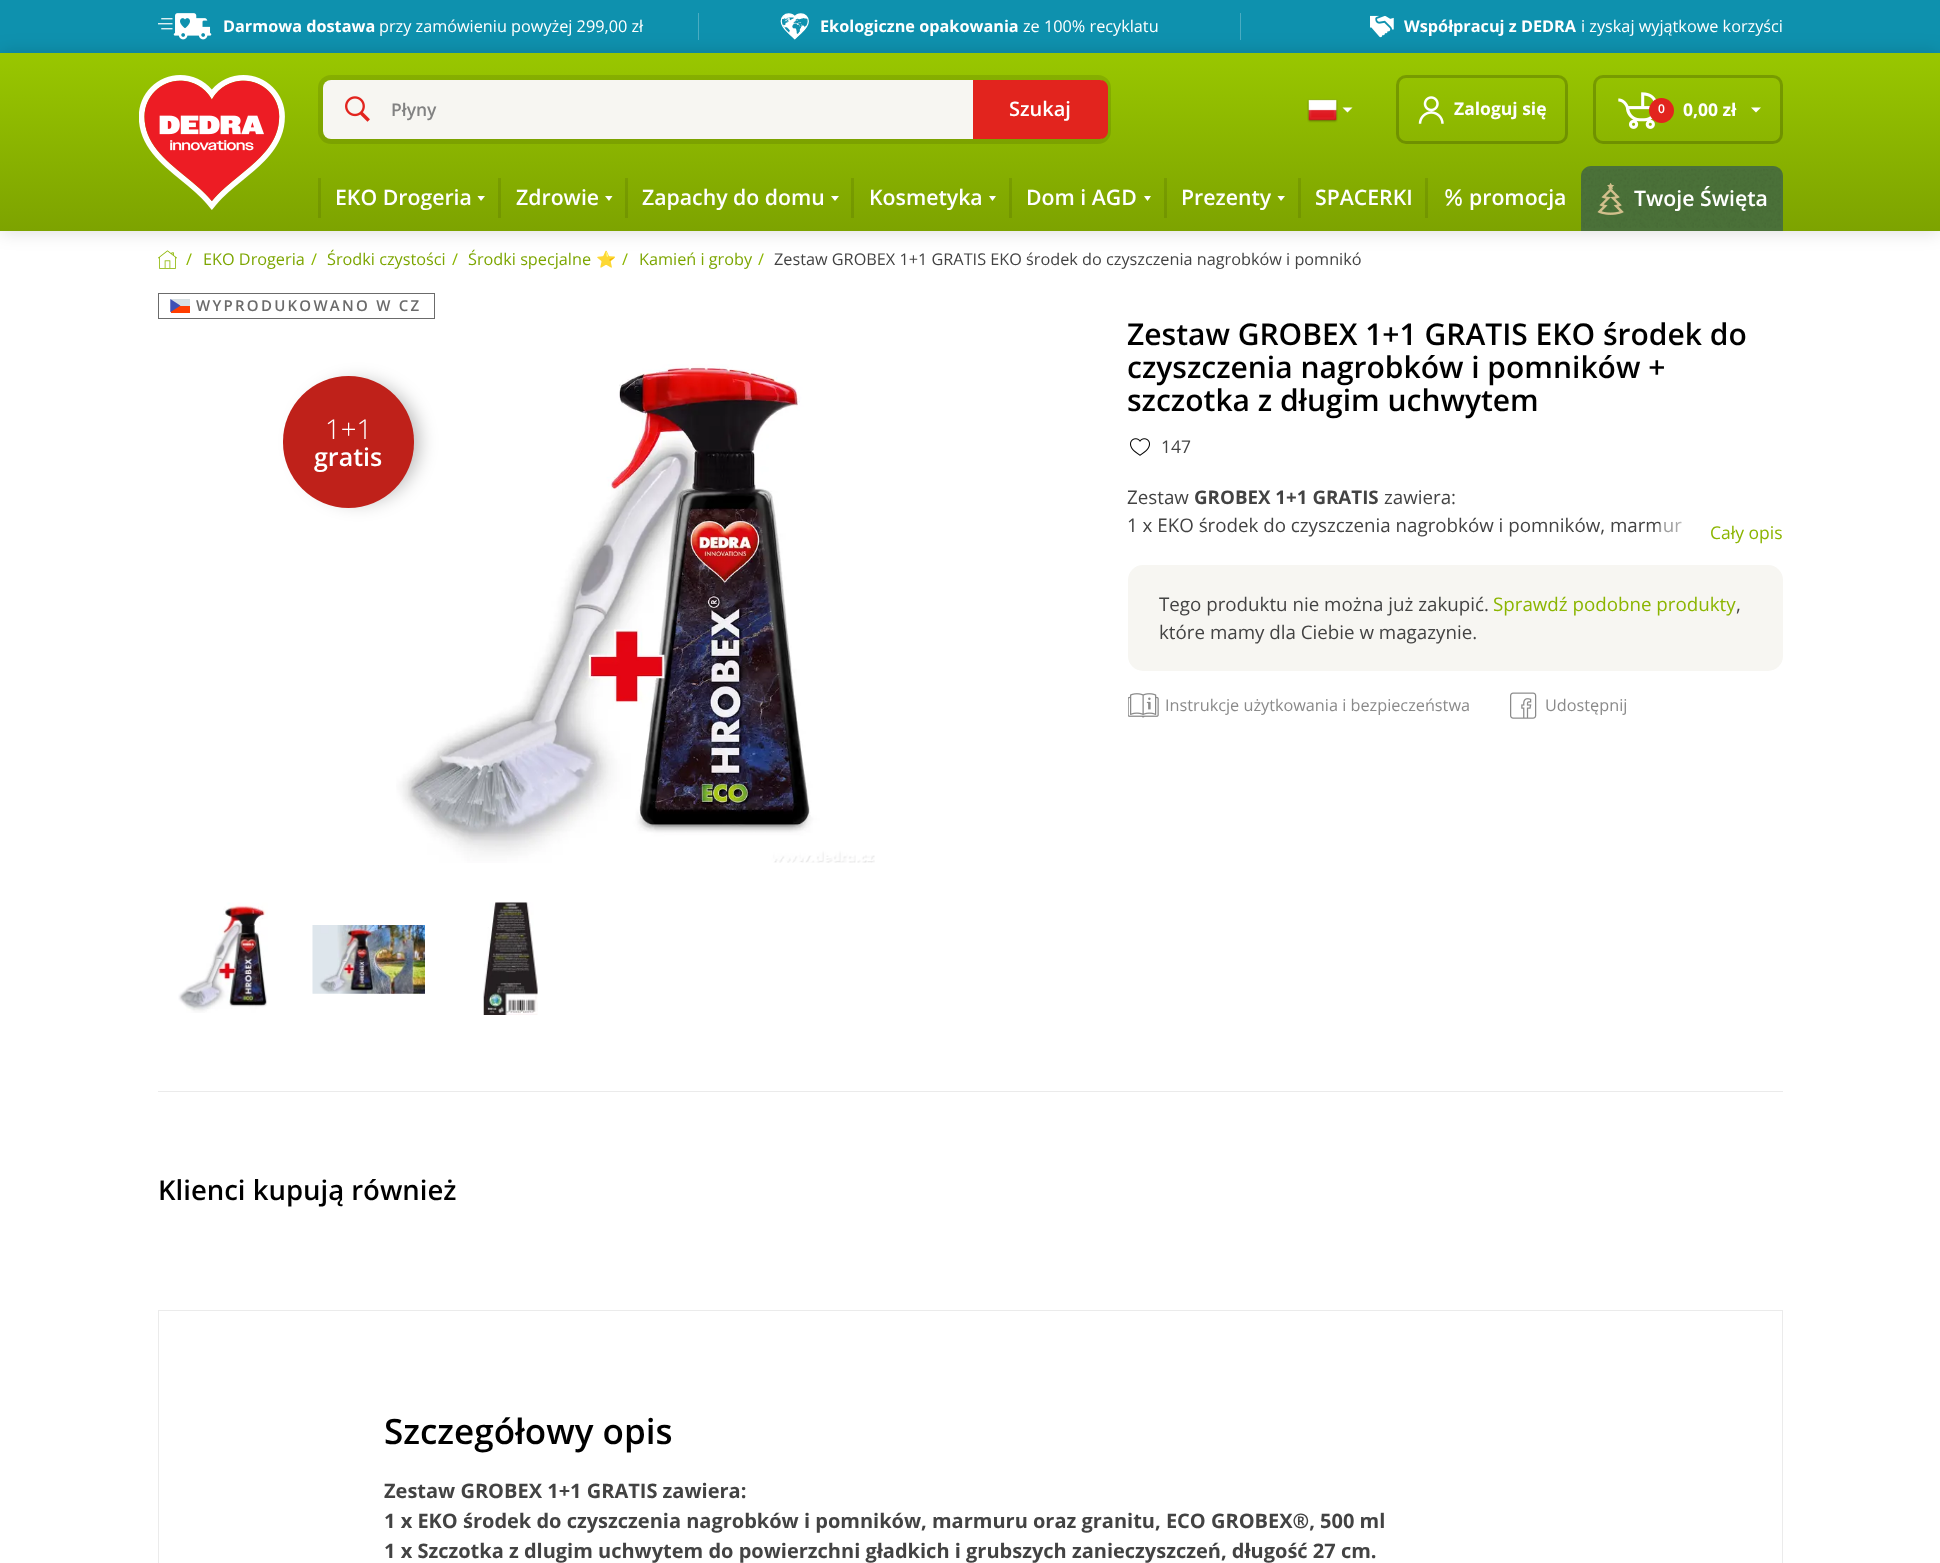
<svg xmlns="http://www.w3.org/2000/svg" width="1940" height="1563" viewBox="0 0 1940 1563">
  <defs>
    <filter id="blur1" x="-50%" y="-200%" width="200%" height="500%"><feGaussianBlur stdDeviation="9.5"/></filter>
    <linearGradient id="g1" gradientUnits="userSpaceOnUse" x1="970" y1="231" x2="970" y2="53"><stop offset="0" stop-color="#7da300"/><stop offset="1" stop-color="#99c700"/></linearGradient>
    <linearGradient id="g2" gradientUnits="userSpaceOnUse" x1="970" y1="231" x2="970" y2="53"><stop offset="0" stop-color="#719300"/><stop offset="1" stop-color="#8ab300"/></linearGradient>
    <linearGradient id="g3" gradientUnits="userSpaceOnUse" x1="1660" y1="534" x2="1783" y2="534"><stop offset="0.11" stop-color="#ffffff" stop-opacity="0.48"/><stop offset="0.3" stop-color="#ffffff"/><stop offset="0.5" stop-color="#ffffff"/></linearGradient>
  </defs>
  <rect width="100%" height="100%" fill="#ffffff"/>
  <rect x="0" y="0" width="1940" height="53" fill="#0e91ae"/>
  <rect x="0" y="53" width="1940" height="178" fill="#000000" fill-opacity="0.15" filter="url(#blur1)"/>
  <rect x="698" y="13" width="1" height="27" fill="#4aacc2"/>
  <image x="158" y="13" width="54" height="27" href="img1.png"/>
  <text x="223" y="32" font-family="Open Sans" font-size="16.25" font-weight="bold" fill="#ffffff">Darmowa dostawa</text>
  <text x="379" y="32" font-family="Open Sans" font-size="16.25" fill="#ffffff">przy zamówieniu powyżej 299,00 zł</text>
  <rect x="1240" y="13" width="1" height="27" fill="#4aacc2"/>
  <image x="780" y="13" width="29" height="27" href="img2.png"/>
  <text x="820" y="32" font-family="Open Sans" font-size="16.25" font-weight="bold" fill="#ffffff">Ekologiczne opakowania</text>
  <text x="1023" y="32" font-family="Open Sans" font-size="16.25" fill="#ffffff">ze 100% recyklatu</text>
  <image x="1370" y="15" width="24" height="23" href="img3.png"/>
  <text x="1404" y="32" font-family="Open Sans" font-size="16.25" font-weight="bold" fill="#ffffff">Współpracuj z DEDRA</text>
  <text x="1581" y="32" font-family="Open Sans" font-size="16.25" fill="#ffffff">i zyskaj wyjątkowe korzyści</text>
  <rect x="0" y="53" width="1940" height="178" fill="url(#g1)"/>
  <rect x="1425" y="178" width="3" height="40" fill="url(#g2)"/>
  <rect x="1298" y="178" width="3" height="40" fill="url(#g2)"/>
  <rect x="1164" y="178" width="3" height="40" fill="url(#g2)"/>
  <rect x="1009" y="178" width="3" height="40" fill="url(#g2)"/>
  <rect x="851" y="178" width="3" height="40" fill="url(#g2)"/>
  <rect x="625" y="178" width="3" height="40" fill="url(#g2)"/>
  <rect x="498" y="178" width="3" height="40" fill="url(#g2)"/>
  <rect x="318" y="178" width="3" height="40" fill="url(#g2)"/>
  <image x="139" y="75" width="146" height="135" href="img4.png"/>
  <rect x="323" y="80" width="783" height="59" rx="8" fill="#f7f6f2"/>
  <image x="345" y="96" width="25" height="26" href="img5.png"/>
  <rect x="320.5" y="77.5" width="788" height="64" rx="10.5" fill="none" stroke="#000000" stroke-opacity="0.1" stroke-width="5"/>
  <text x="391" y="116" font-family="Open Sans" font-size="17.5" font-weight="600" fill="#828282">Płyny</text>
  <path d="M973 80H1100C1104.5 80 1108 83.5 1108 88V131C1108 135.5 1104.5 139 1100 139H973Z" fill="#e2241e"/>
  <text x="1009" y="116" font-family="Open Sans" font-size="20" font-weight="600" fill="#ffffff">Szukaj</text>
  <image x="1307" y="99" width="31" height="24" href="img6.png"/>
  <path d="M1342.5 107.5H1352.5L1347.5 112.5Z" fill="#ffffff"/>
  <rect x="1397.5" y="76.5" width="169" height="66" rx="8.5" fill="none" stroke="#000000" stroke-opacity="0.2" stroke-width="3"/>
  <image x="1418" y="96" width="26" height="28" href="img7.png"/>
  <text x="1454" y="115" font-family="Open Sans" font-size="17.5" font-weight="bold" fill="#ffffff">Zaloguj się</text>
  <rect x="1594.5" y="76.5" width="187" height="66" rx="8.5" fill="none" stroke="#000000" stroke-opacity="0.2" stroke-width="3"/>
  <image x="1618" y="92" width="39" height="37" href="img8.png"/>
  <circle cx="1661.5" cy="110.5" r="12.5" fill="#e2241e"/>
  <text x="1658" y="113" font-family="Open Sans" font-size="12" font-weight="600" fill="#ffffff">0</text>
  <text x="1683" y="116" font-family="Open Sans" font-size="17.5" font-weight="bold" fill="#ffffff">0,00 zł</text>
  <path d="M1751 107.5H1761L1756 112.5Z" fill="#ffffff"/>
  <text x="335" y="205" font-family="Open Sans" font-size="21.25" font-weight="600" fill="#ffffff">EKO Drogeria</text>
  <path d="M477.5 196H485L481 201Z" fill="#ffffff"/>
  <text x="516" y="205" font-family="Open Sans" font-size="21.25" font-weight="600" fill="#ffffff">Zdrowie</text>
  <path d="M605 196H612.5L609 201Z" fill="#ffffff"/>
  <text x="642" y="205" font-family="Open Sans" font-size="21.25" font-weight="600" fill="#ffffff">Zapachy do domu</text>
  <path d="M831 196H839L835 201Z" fill="#ffffff"/>
  <text x="869" y="205" font-family="Open Sans" font-size="21.25" font-weight="600" fill="#ffffff">Kosmetyka</text>
  <path d="M989 196H996L992.5 201Z" fill="#ffffff"/>
  <text x="1026" y="205" font-family="Open Sans" font-size="21.25" font-weight="600" fill="#ffffff">Dom i AGD</text>
  <path d="M1144 196H1151L1147.5 201Z" fill="#ffffff"/>
  <text x="1181" y="205" font-family="Open Sans" font-size="21.25" font-weight="600" fill="#ffffff">Prezenty</text>
  <path d="M1277.5 196H1285L1281 201Z" fill="#ffffff"/>
  <text x="1315" y="205" font-family="Open Sans" font-size="21.25" font-weight="600" fill="#ffffff">SPACERKI</text>
  <image x="1445" y="189" width="17" height="17" href="img9.png"/>
  <text x="1469" y="205" font-family="Open Sans" font-size="21.25" font-weight="600" fill="#ffffff">promocja</text>
  <path d="M1591 166H1773C1778.5 166 1783 170.5 1783 176V231H1581V176C1581 170.5 1585.5 166 1591 166Z" fill="#4b7139"/>
  <image x="1581" y="169" width="200" height="59" href="img10.png"/>
  <image x="1597" y="183" width="27" height="32" href="img11.png"/>
  <text x="1634" y="206" font-family="Open Sans" font-size="21.25" font-weight="600" fill="#ffffff">Twoje Święta</text>
  <image x="158" y="250" width="19" height="19" href="img12.png"/>
  <text x="186" y="265" font-family="Open Sans" font-size="16.25" fill="#8bb500">/</text>
  <text x="203" y="265" font-family="Open Sans" font-size="16.25" fill="#7da602">EKO Drogeria</text>
  <text x="311" y="265" font-family="Open Sans" font-size="16.25" fill="#8bb500">/</text>
  <text x="327" y="265" font-family="Open Sans" font-size="16.25" fill="#7da602">Środki czystości</text>
  <text x="452" y="265" font-family="Open Sans" font-size="16.25" fill="#8bb500">/</text>
  <text x="468" y="265" font-family="Open Sans" font-size="16.25" fill="#7da602">Środki specjalne</text>
  <text x="596" y="265" font-family="Noto Color Emoji" font-size="16.25" fill="#7da602">⭐</text>
  <text x="622" y="265" font-family="Open Sans" font-size="16.25" fill="#8bb500">/</text>
  <text x="639" y="265" font-family="Open Sans" font-size="16.25" fill="#7da602">Kamień i groby</text>
  <text x="758" y="265" font-family="Open Sans" font-size="16.25" fill="#8bb500">/</text>
  <text x="774" y="265" font-family="Open Sans" font-size="16.25" fill="#434343">Zestaw GROBEX 1+1 GRATIS EKO środek do czyszczenia nagrobków i pomnikó</text>
  <image x="170" y="299" width="20" height="14" href="img13.png"/>
  <rect x="158.5" y="293.5" width="276" height="25" fill="none" stroke="#6b6b6b"/>
  <text x="196" y="311" font-family="Open Sans" font-size="15" font-weight="600" letter-spacing="2.25" fill="#6b6b6b">WYPRODUKOWANO W CZ</text>
  <image x="396" y="364" width="479" height="499" href="img14.png"/>
  <rect x="299" y="383" width="119" height="118" rx="59" fill="#000000" fill-opacity="0.3" filter="url(#blur1)"/>
  <rect x="283" y="376" width="131" height="132" rx="65.5" fill="#bf211a"/>
  <text x="325" y="439" font-family="Open Sans" font-size="27.5" font-weight="300" fill="#ffffff">1+1</text>
  <text x="314" y="466" font-family="Open Sans" font-size="25" font-weight="600" fill="#ffffff">gratis</text>
  <image x="178" y="902" width="90" height="111" href="img15.png"/>
  <image x="312" y="925" width="113" height="69" href="img16.png"/>
  <image x="483" y="902" width="55" height="113" href="img17.png"/>
  <text x="1127" y="345" font-family="Open Sans" font-size="30" font-weight="600" fill="#000000">Zestaw GROBEX 1+1 GRATIS EKO środek do</text>
  <text x="1127" y="378" font-family="Open Sans" font-size="30" font-weight="600" fill="#000000">czyszczenia nagrobków i pomników +</text>
  <text x="1127" y="411" font-family="Open Sans" font-size="30" font-weight="600" fill="#000000">szczotka z długim uchwytem</text>
  <image x="1130" y="438" width="20" height="18" href="img18.png"/>
  <text x="1161" y="453" font-family="Open Sans" font-size="17.5" fill="#434343">147</text>
  <text x="1127" y="504" font-family="Open Sans" font-size="18.75" fill="#434343">Zestaw</text>
  <text x="1194" y="504" font-family="Open Sans" font-size="18.75" font-weight="bold" fill="#434343">GROBEX 1+1 GRATIS</text>
  <text x="1384" y="504" font-family="Open Sans" font-size="18.75" fill="#434343">zawiera:</text>
  <text x="1127" y="532" font-family="Open Sans" font-size="18.75" fill="#434343">1 x EKO środek do czyszczenia nagrobków i pomników, marmur</text>
  <rect x="1660" y="521" width="22" height="12" fill="url(#g3)"/>
  <text x="1710" y="539" font-family="Open Sans" font-size="17.5" fill="#8bb500">Cały opis</text>
  <rect x="1128" y="565" width="655" height="106" rx="15" fill="#f7f6f2"/>
  <text x="1159" y="611" font-family="Open Sans" font-size="18.75" fill="#434343">Tego produktu nie można już zakupić.</text>
  <text x="1493" y="611" font-family="Open Sans" font-size="18.75" fill="#8bb500">Sprawdź podobne produkty</text>
  <text x="1736" y="611" font-family="Open Sans" font-size="18.75" fill="#434343">,</text>
  <text x="1159" y="639" font-family="Open Sans" font-size="18.75" fill="#434343">które mamy dla Ciebie w magazynie.</text>
  <image x="1128" y="693" width="31" height="25" href="img19.png"/>
  <text x="1165" y="711" font-family="Open Sans" font-size="16.25" fill="#8a8a8a">Instrukcje użytkowania i bezpieczeństwa</text>
  <image x="1510" y="692" width="27" height="27" href="img20.png"/>
  <text x="1545" y="711" font-family="Open Sans" font-size="16.25" fill="#8a8a8a">Udostępnij</text>
  <rect x="158" y="1091" width="1625" height="1" fill="#ebebeb"/>
  <text x="158" y="1200" font-family="Open Sans" font-size="27.5" font-weight="600" fill="#000000">Klienci kupują również</text>
  <rect x="158.5" y="1310.5" width="1624" height="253" fill="none" stroke="#ebebeb"/>
  <text x="384" y="1444" font-family="Open Sans" font-size="35" font-weight="600" fill="#000000">Szczegółowy opis</text>
  <text x="384" y="1498" font-family="Open Sans" font-size="20" font-weight="bold" fill="#434343">Zestaw GROBEX 1+1 GRATIS zawiera:</text>
  <text x="384" y="1528" font-family="Open Sans" font-size="20" font-weight="bold" fill="#434343">1 x EKO środek do czyszczenia nagrobków i pomników, marmuru oraz granitu, ECO GROBEX®, 500 ml</text>
  <text x="384" y="1558" font-family="Open Sans" font-size="20" font-weight="bold" fill="#434343">1 x Szczotka z dlugim uchwytem do powierzchni gładkich i grubszych zanieczyszczeń, długość 27 cm.</text>
</svg>
